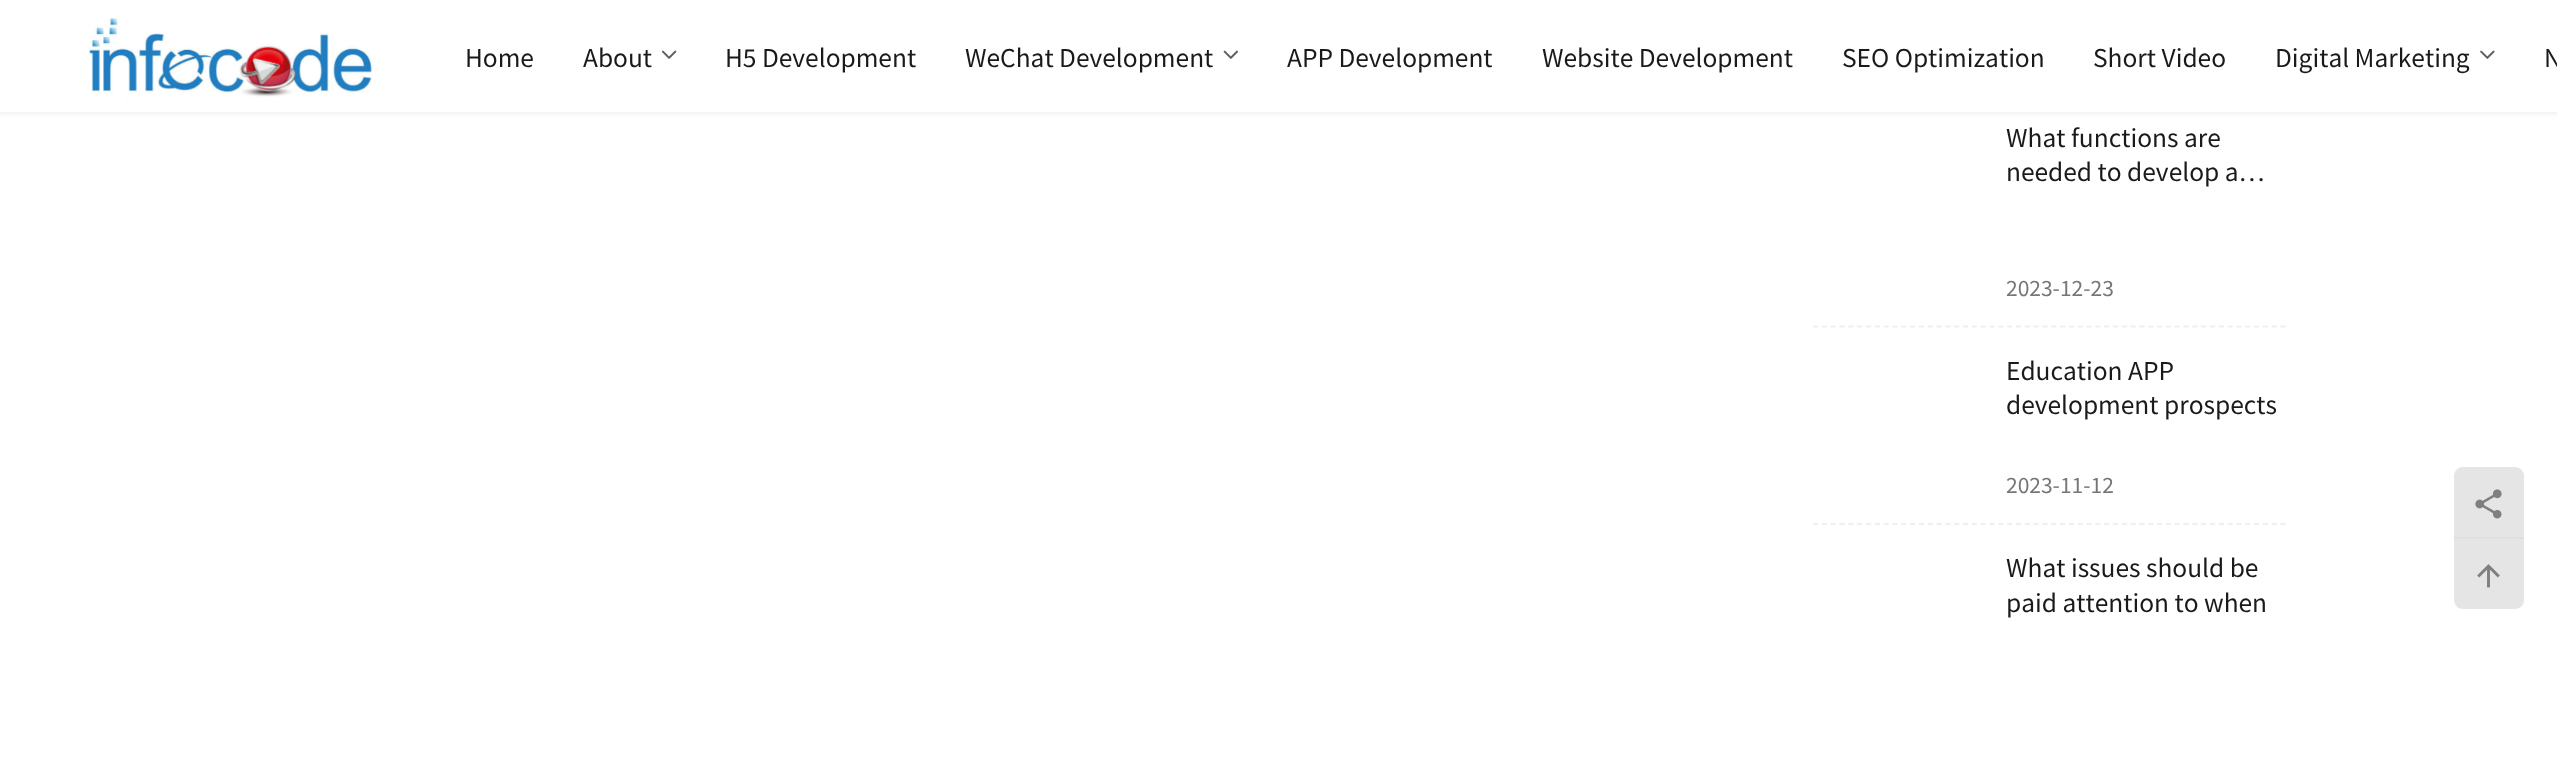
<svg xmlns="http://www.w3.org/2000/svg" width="2557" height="761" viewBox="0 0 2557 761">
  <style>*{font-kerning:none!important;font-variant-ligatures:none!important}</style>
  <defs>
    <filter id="blur1" x="-50%" y="-200%" width="200%" height="500%"><feGaussianBlur stdDeviation="2.5"/></filter>
  </defs>
  <rect width="100%" height="100%" fill="#ffffff"/>
  <rect x="-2" y="-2" width="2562" height="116" fill="#1a1a1a" fill-opacity="0.06" filter="url(#blur1)"/>
  <rect x="0" y="0" width="2557" height="112" fill="#ffffff"/>
  <image x="88" y="18" width="284" height="82" href="img1.png"/>
  <text x="465" y="67" font-family="Noto Sans CJK SC" font-size="24.5" fill="#1a1a1a">Home</text>
  <text x="583" y="67" font-family="Noto Sans CJK SC" font-size="24.5" fill="#1a1a1a">About</text>
  <image x="661" y="50" width="16" height="9" href="img2.png"/>
  <text x="725" y="67" font-family="Noto Sans CJK SC" font-size="24.5" fill="#1a1a1a">H5 Development</text>
  <text x="965" y="67" font-family="Noto Sans CJK SC" font-size="24.5" fill="#1a1a1a">WeChat Development</text>
  <image x="1223" y="50" width="15" height="9" href="img3.png"/>
  <text x="1287" y="67" font-family="Noto Sans CJK SC" font-size="24.5" fill="#1a1a1a">APP Development</text>
  <text x="1542" y="67" font-family="Noto Sans CJK SC" font-size="24.5" fill="#1a1a1a">Website Development</text>
  <text x="1842" y="67" font-family="Noto Sans CJK SC" font-size="24.5" fill="#1a1a1a">SEO Optimization</text>
  <text x="2093" y="67" font-family="Noto Sans CJK SC" font-size="24.5" fill="#1a1a1a">Short Video</text>
  <text x="2275" y="67" font-family="Noto Sans CJK SC" font-size="24.5" fill="#1a1a1a">Digital Marketing</text>
  <image x="2480" y="50" width="15" height="9" href="img4.png"/>
  <text x="2544" y="67" font-family="Noto Sans CJK SC" font-size="24.5" fill="#1a1a1a">N</text>
  <path d="M1813 326.5H2285.5" fill="none" stroke="#efefef" stroke-width="1.8" stroke-dasharray="5.25 3.57"/>
  <text x="2006" y="147" font-family="Noto Sans CJK SC" font-size="24.5" fill="#1a1a1a">What functions are</text>
  <text x="2006" y="181" font-family="Noto Sans CJK SC" font-size="24.5" fill="#1a1a1a">needed to develop a…</text>
  <text x="2006" y="296" font-family="Noto Sans CJK SC" font-size="21" fill="#767676">2023-12-23</text>
  <path d="M1813 524H2285.5" fill="none" stroke="#efefef" stroke-width="1.8" stroke-dasharray="5.25 3.57"/>
  <text x="2006" y="380" font-family="Noto Sans CJK SC" font-size="24.5" fill="#1a1a1a">Education APP</text>
  <text x="2006" y="414" font-family="Noto Sans CJK SC" font-size="24.5" fill="#1a1a1a">development prospects</text>
  <text x="2006" y="493" font-family="Noto Sans CJK SC" font-size="21" fill="#767676">2023-11-12</text>
  <text x="2006" y="577" font-family="Noto Sans CJK SC" font-size="24.5" fill="#1a1a1a">What issues should be</text>
  <text x="2006" y="612" font-family="Noto Sans CJK SC" font-size="24.5" fill="#1a1a1a">paid attention to when</text>
  <path d="M2463 467H2515C2520 467 2524 471 2524 476V537H2454V476C2454 471 2458 467 2463 467Z" fill="#f5f5f5"/>
  <path d="M2463 467H2515C2520 467 2524 471 2524 476V537H2454V476C2454 471 2458 467 2463 467Z" fill="#1a1a1a" fill-opacity="0.07"/>
  <image x="2475" y="489" width="27" height="30" href="img5.png"/>
  <path d="M2454 537H2524V600C2524 605 2520 609 2515 609H2463C2458 609 2454 605 2454 600Z" fill="#f5f5f5"/>
  <rect x="2454" y="537" width="70" height="2" fill="#dfdfdf"/>
  <path d="M2454 539H2524V600C2524 605 2520 609 2515 609H2463C2458 609 2454 605 2454 600Z" fill="#1a1a1a" fill-opacity="0.07"/>
  <image x="2477" y="564" width="23" height="24" href="img6.png"/>
</svg>
